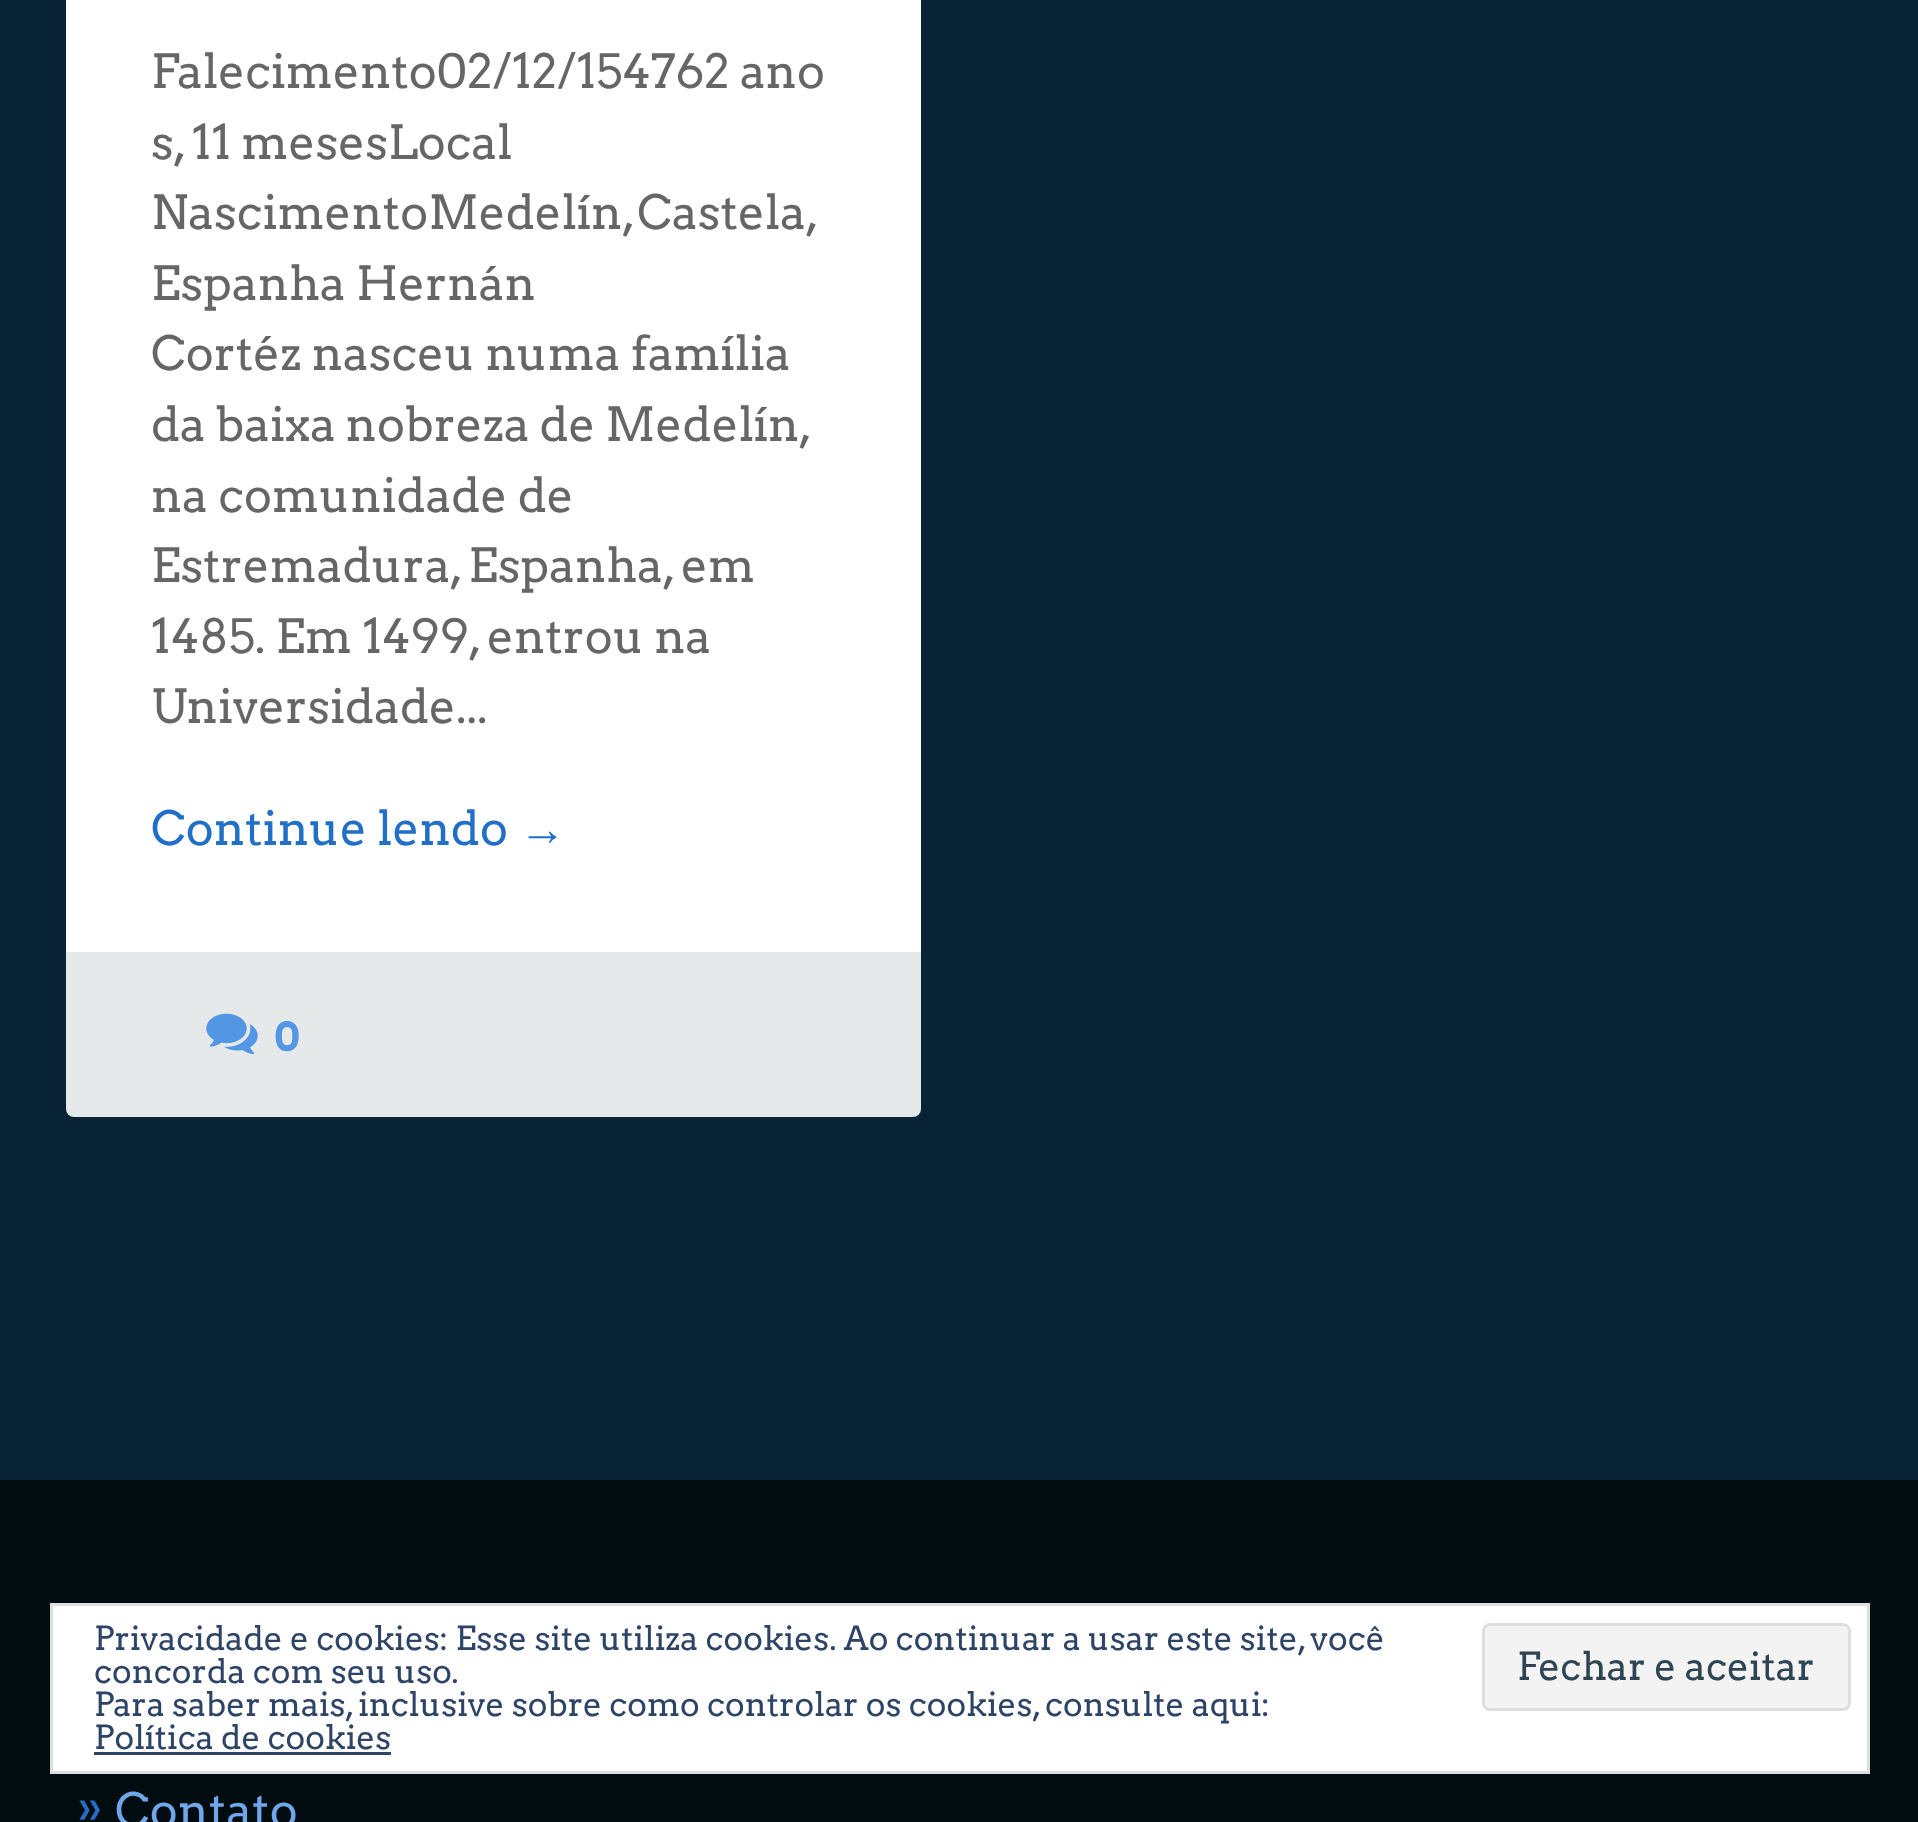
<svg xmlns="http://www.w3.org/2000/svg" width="1918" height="1822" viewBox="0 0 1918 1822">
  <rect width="100%" height="100%" fill="#072335"/>
  <rect x="66" y="-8" width="855" height="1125" rx="8" fill="#ffffff"/>
  <text x="151" y="88" font-family="Arvo" font-size="47" fill="#666666">Falecimento02/12/154762 ano</text>
  <text x="151" y="159" font-family="Arvo" font-size="47" fill="#666666">s, 11 mesesLocal</text>
  <text x="151" y="229" word-spacing="-3" font-family="Arvo" font-size="47" fill="#666666">NascimentoMedelín, Castela,</text>
  <text x="151" y="300" font-family="Arvo" font-size="47" fill="#666666">Espanha Hernán</text>
  <text x="151" y="370" font-family="Arvo" font-size="47" fill="#666666">Cortéz nasceu numa família</text>
  <text x="151" y="441" word-spacing="-0.5" font-family="Arvo" font-size="47" fill="#666666">da baixa nobreza de Medelín,</text>
  <text x="151" y="512" font-family="Arvo" font-size="47" fill="#666666">na comunidade de</text>
  <text x="151" y="582" font-family="Arvo" font-size="47" fill="#666666">Estremadura, Espanha, em</text>
  <text x="151" y="653" font-family="Arvo" font-size="47" fill="#666666">1485. Em 1499, entrou na</text>
  <text x="151" y="723" font-family="Arvo" font-size="47" fill="#666666">Universidade...</text>
  <text x="151" y="845" font-family="Arvo" font-size="47" fill="#226fc8">Continue lendo</text>
  <text x="519" y="845" font-family="Liberation Serif" font-size="47" fill="#226fc8">→</text>
  <path d="M66 952H921V1109C921 1113.5 917.5 1117 913 1117H74C69.5 1117 66 1113.5 66 1109Z" fill="#072335" fill-opacity="0.1"/>
  <image x="206" y="1013" width="52" height="42" href="img1.png"/>
  <text x="274" y="1051" font-family="Arvo" font-size="40" font-weight="bold" fill="#5296e4">0</text>
  <rect x="0" y="1480" width="1918" height="342" fill="#000c10"/>
  <rect x="51.5" y="1604.5" width="1817" height="168" fill="#ffffff" stroke="#dedede" stroke-width="3"/>
  <text x="94" y="1650" font-family="Arvo" font-size="33" fill="#2e4467">Privacidade e cookies: Esse site utiliza cookies. Ao continuar a usar este site, você</text>
  <text x="94" y="1683" font-family="Arvo" font-size="33" fill="#2e4467">concorda com seu uso.</text>
  <rect x="1483.5" y="1624.5" width="366" height="85" rx="6.5" fill="#f3f3f3" stroke="#dedede" stroke-width="3"/>
  <text x="1517" y="1680" font-family="Arvo" font-size="38.5" fill="#2e4453">Fechar e aceitar</text>
  <text x="94" y="1716" font-family="Arvo" font-size="33" fill="#2e4467">Para saber mais, inclusive sobre como controlar os cookies, consulte aqui:</text>
  <text x="94" y="1749" font-family="Arvo" font-size="33" fill="#2e4467">Política de cookies</text>
  <rect x="94" y="1752" width="297" height="3" fill="#2e4467"/>
  <text x="77" y="1824" font-family="Arvo" font-size="50" fill="#226fc8">»</text>
  <text x="115" y="1827" font-family="Arvo" font-size="47" fill="#6ea7ea">Contato</text>
</svg>
